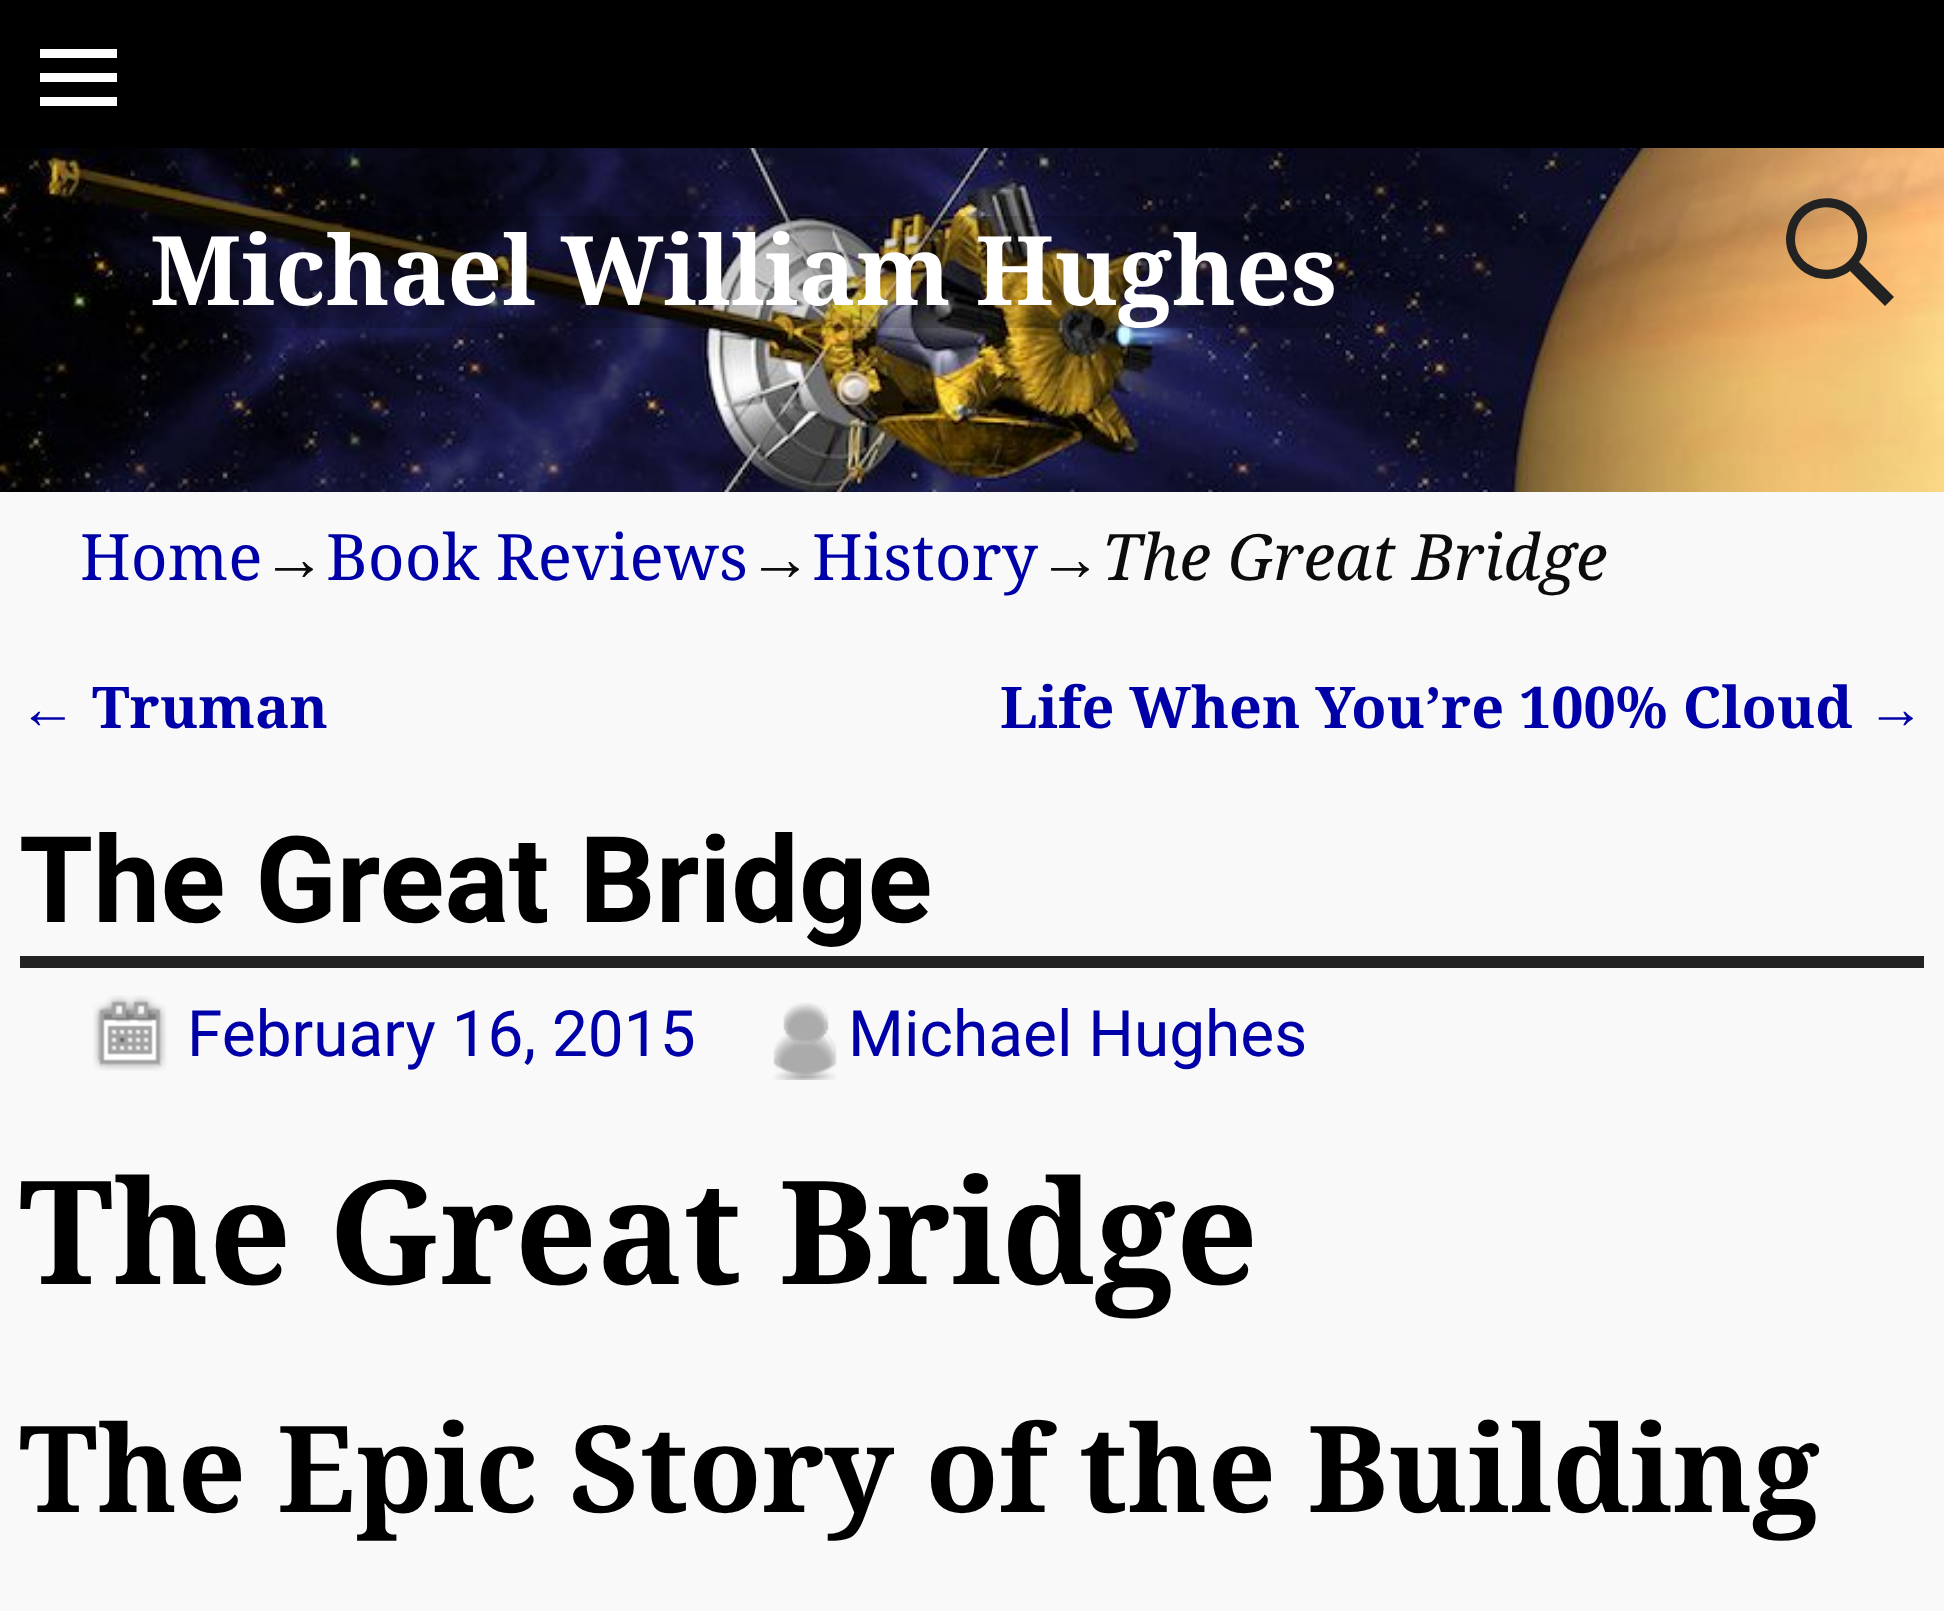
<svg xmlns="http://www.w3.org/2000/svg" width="1944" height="1611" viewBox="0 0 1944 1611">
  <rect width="100%" height="100%" fill="#f9f9f9"/>
  <rect x="0" y="0" width="1944" height="148" fill="#000000"/>
  <path d="M40 106V97H117V106ZM40 49H117V58H40ZM40 82V73H117V82Z" fill="#ffffff"/>
  <image x="0" y="148" width="1944" height="344" href="img1.png"/>
  <rect x="136" y="216" width="1216" height="112" fill="#000000" fill-opacity="0.15"/>
  <text x="150" y="305" font-family="Droid Serif" font-size="96" font-weight="bold" fill="#ffffff">Michael William Hughes</text>
  <path d="M1894 297L1885 306L1850 271C1830 286 1801 279 1790 256C1786 248 1785 239 1787 231C1795 189 1855 187 1866 228C1869 240 1866 252 1859 262ZM1799 223C1796 228 1795 234 1795 241C1797 271 1838 281 1854 254C1857 249 1858 243 1858 236C1856 206 1815 196 1799 223Z" fill="#222222"/>
  <text x="80" y="580" font-family="Droid Serif" font-size="64" fill="#0000a8">Home</text>
  <text x="262" y="580" font-family="Liberation Serif" font-size="64" fill="#0c0c0c">→</text>
  <text x="326" y="580" font-family="Droid Serif" font-size="64" fill="#0000a8">Book Reviews</text>
  <text x="748" y="580" font-family="Liberation Serif" font-size="64" fill="#0c0c0c">→</text>
  <text x="812" y="580" font-family="Droid Serif" font-size="64" fill="#0000a8">History</text>
  <text x="1038" y="580" font-family="Liberation Serif" font-size="64" fill="#0c0c0c">→</text>
  <text x="1102" y="580" font-family="Droid Serif" font-size="64" font-style="italic" fill="#0c0c0c">The Great Bridge</text>
  <text x="19" y="728" font-family="Liberation Serif" font-size="57.6" fill="#0000a8">←</text>
  <text x="92" y="728" font-family="Droid Serif" font-size="57.6" font-weight="bold" fill="#0000a8">Truman</text>
  <text x="1000" y="728" font-family="Droid Serif" font-size="57.6" font-weight="bold" fill="#0000a8">Life When You’re 100% Cloud</text>
  <text x="1867" y="728" font-family="Liberation Serif" font-size="57.6" fill="#0000a8">→</text>
  <rect x="20" y="956" width="1904" height="12" fill="#222222"/>
  <text x="19" y="922" font-family="Roboto" font-size="120" font-weight="bold" fill="#000000">The Great Bridge</text>
  <image x="93" y="995" width="74" height="76" href="img2.png"/>
  <text x="187" y="1056" font-family="Roboto" font-size="64" fill="#0000a8">February 16, 2015</text>
  <image x="773" y="1002" width="64" height="78" href="img3.png"/>
  <text x="848" y="1056" font-family="Roboto" font-size="64" fill="#0000a8">Michael Hughes</text>
  <text x="19" y="1284" font-family="Droid Serif" font-size="144" font-weight="bold" fill="#000000">The Great Bridge</text>
  <text x="19" y="1512" font-family="Droid Serif" font-size="120" font-weight="bold" fill="#000000">The Epic Story of the Building</text>
</svg>
